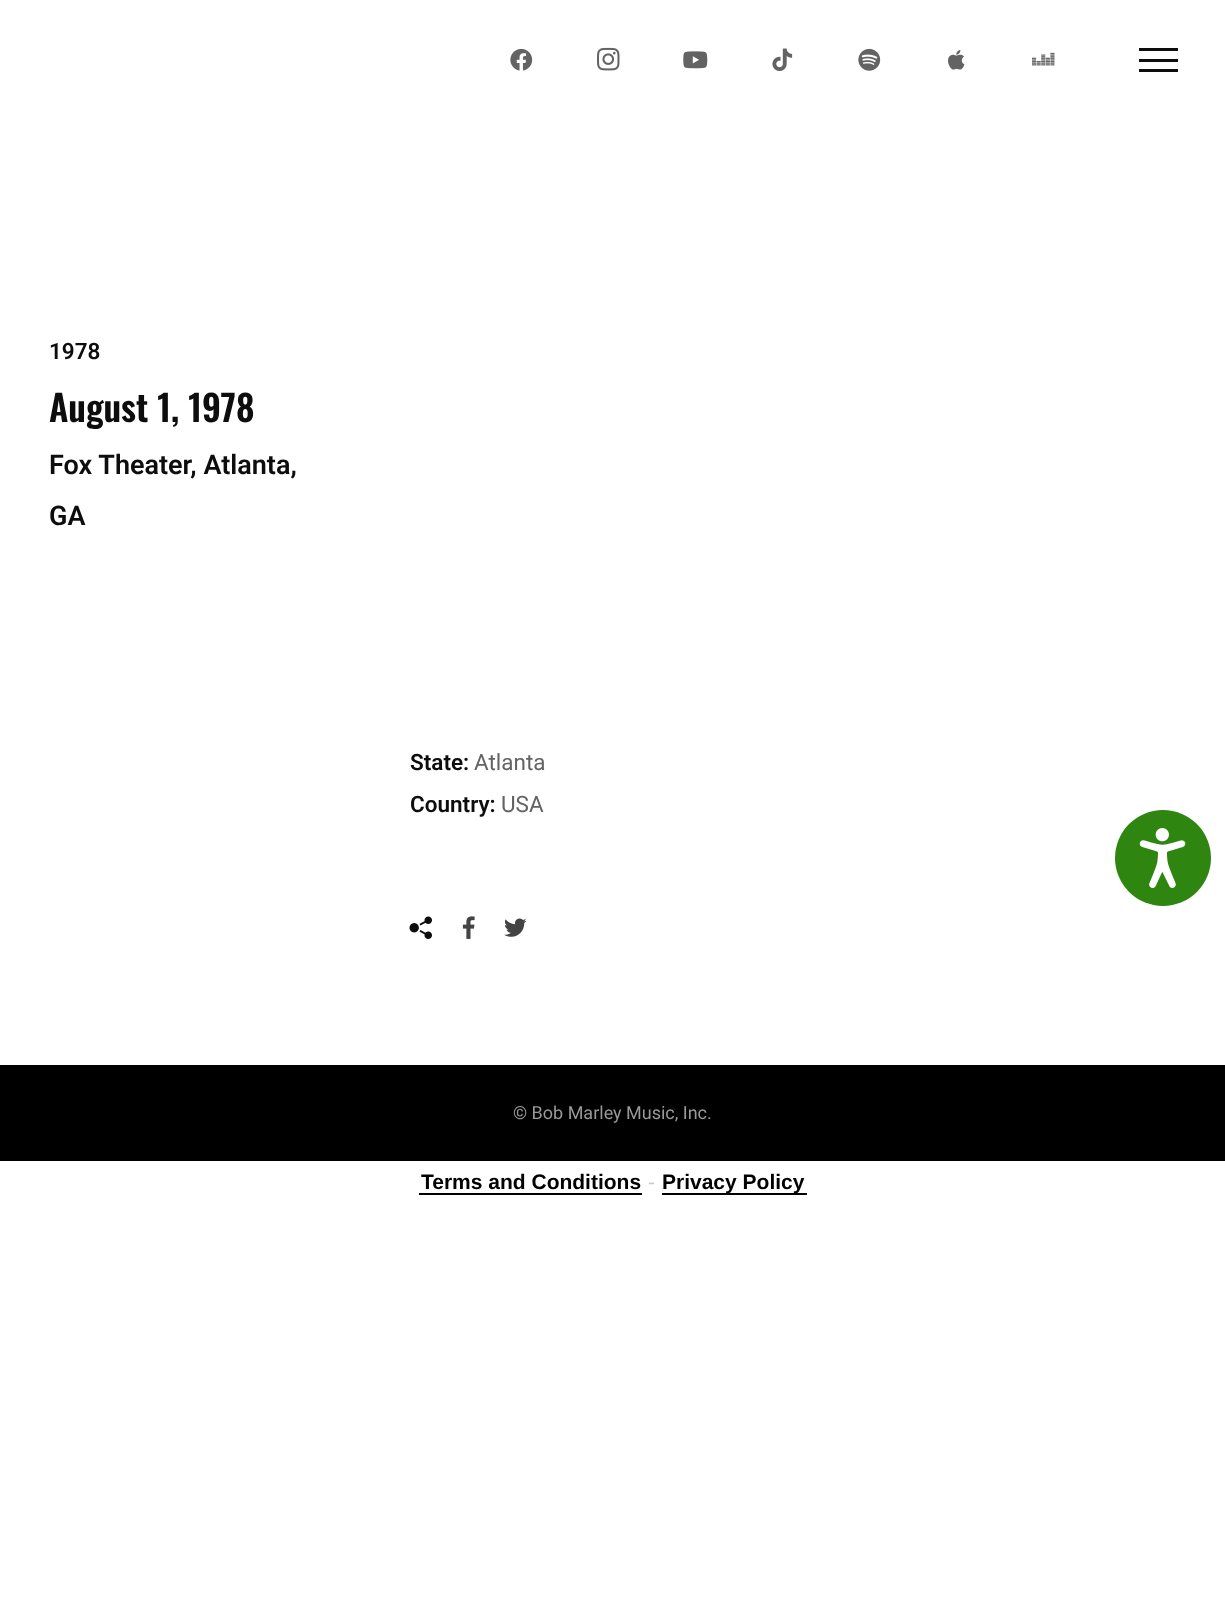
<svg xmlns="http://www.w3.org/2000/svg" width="1225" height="1619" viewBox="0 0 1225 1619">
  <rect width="100%" height="100%" fill="#ffffff"/>
  <image x="510" y="48" width="23" height="23" href="img1.png"/>
  <image x="597" y="47" width="23" height="24" href="img2.png"/>
  <image x="683" y="51" width="25" height="18" href="img3.png"/>
  <image x="772" y="48" width="21" height="24" href="img4.png"/>
  <image x="858" y="48" width="23" height="23" href="img5.png"/>
  <image x="948" y="50" width="17" height="20" href="img6.png"/>
  <image x="1032" y="52" width="23" height="14" href="img7.png"/>
  <rect x="1139" y="48" width="39" height="3" fill="#0d0d0d"/>
  <rect x="1139" y="59" width="39" height="3" fill="#0d0d0d"/>
  <rect x="1139" y="69" width="39" height="3" fill="#0d0d0d"/>
  <text x="49" y="359" font-family="Roboto" font-size="22.5" font-weight="600" fill="#0d0d0d">1978</text>
  <text x="49" y="422" font-family="Oswald" font-size="36" font-weight="600" fill="#0d0d0d">August 1, 1978</text>
  <text x="49" y="474" font-family="Roboto" font-size="27" font-weight="600" fill="#0d0d0d">Fox Theater, Atlanta,</text>
  <text x="49" y="525" font-family="Roboto" font-size="27" font-weight="600" fill="#0d0d0d">GA</text>
  <text x="410" y="770" font-family="Roboto" font-size="22.5" font-weight="600" fill="#0d0d0d">State:</text>
  <text x="474" y="770" font-family="Roboto" font-size="22.5" fill="#636363">Atlanta</text>
  <text x="410" y="812" font-family="Roboto" font-size="22.5" font-weight="600" fill="#0d0d0d">Country:</text>
  <text x="501" y="812" font-family="Roboto" font-size="22.5" fill="#636363">USA</text>
  <image x="409" y="916" width="23" height="23" href="img8.png"/>
  <image x="462" y="916" width="13" height="23" href="img9.png"/>
  <image x="504" y="918" width="23" height="19" href="img10.png"/>
  <rect x="0" y="1065" width="1225" height="96" fill="#000000"/>
  <text x="513" y="1119" font-family="Roboto" font-size="18" fill="#999999">© Bob Marley Music, Inc.</text>
  <circle cx="1163" cy="858" r="48" fill="#2e850f"/>
  <image x="1139" y="828" width="47" height="60" href="img11.png"/>
  <text x="421" y="1189" font-family="Liberation Sans" font-size="21" font-weight="bold" fill="#000000">Terms and Conditions</text>
  <rect x="419" y="1193" width="223" height="2" fill="#000000"/>
  <text x="648" y="1189" font-family="Liberation Sans" font-size="21" fill="#cccccc">-</text>
  <rect x="662" y="1193" width="145" height="2" fill="#000000"/>
  <text x="662" y="1189" font-family="Liberation Sans" font-size="21" font-weight="bold" fill="#000000">Privacy Policy</text>
</svg>
